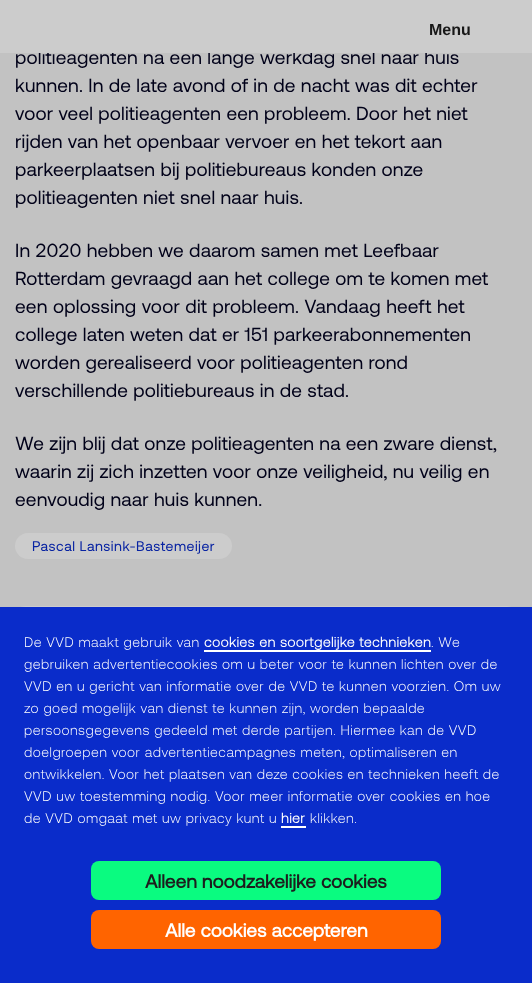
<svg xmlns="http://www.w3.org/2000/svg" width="532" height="983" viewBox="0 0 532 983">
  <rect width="100%" height="100%" fill="#c2c2c2"/>
  <text x="15" y="64" font-family="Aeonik" font-size="19" letter-spacing="0.2" fill="#000119">politieagenten na een lange werkdag snel naar huis</text>
  <rect x="0" y="0" width="532" height="53" fill="#cccccc"/>
  <text x="429" y="35" font-family="Liberation Sans" font-size="16" font-weight="bold" fill="#171717">Menu</text>
  <text x="15" y="92" font-family="Aeonik" font-size="19" letter-spacing="0.2" fill="#000119">kunnen. In de late avond of in de nacht was dit echter</text>
  <text x="15" y="120" font-family="Aeonik" font-size="19" letter-spacing="0.2" fill="#000119">voor veel politieagenten een probleem. Door het niet</text>
  <text x="15" y="148" font-family="Aeonik" font-size="19" letter-spacing="0.2" fill="#000119">rijden van het openbaar vervoer en het tekort aan</text>
  <text x="15" y="176" font-family="Aeonik" font-size="19" letter-spacing="0.2" fill="#000119">parkeerplaatsen bij politiebureaus konden onze</text>
  <text x="15" y="204" font-family="Aeonik" font-size="19" letter-spacing="0.2" fill="#000119">politieagenten niet snel naar huis.</text>
  <text x="15" y="257" font-family="Aeonik" font-size="19" letter-spacing="0.2" fill="#000119">In 2020 hebben we daarom samen met Leefbaar</text>
  <text x="15" y="285" font-family="Aeonik" font-size="19" letter-spacing="0.2" fill="#000119">Rotterdam gevraagd aan het college om te komen met</text>
  <text x="15" y="313" word-spacing="0.25" font-family="Aeonik" font-size="19" letter-spacing="0.2" fill="#000119">een oplossing voor dit probleem. Vandaag heeft het</text>
  <text x="15" y="341" font-family="Aeonik" font-size="19" letter-spacing="0.2" fill="#000119">college laten weten dat er 151 parkeerabonnementen</text>
  <text x="15" y="369" font-family="Aeonik" font-size="19" letter-spacing="0.2" fill="#000119">worden gerealiseerd voor politieagenten rond</text>
  <text x="15" y="397" font-family="Aeonik" font-size="19" letter-spacing="0.2" fill="#000119">verschillende politiebureaus in de stad.</text>
  <text x="15" y="450" font-family="Aeonik" font-size="19" letter-spacing="0.2" fill="#000119">We zijn blij dat onze politieagenten na een zware dienst,</text>
  <text x="15" y="478" font-family="Aeonik" font-size="19" letter-spacing="0.2" fill="#000119">waarin zij zich inzetten voor onze veiligheid, nu veilig en</text>
  <text x="15" y="506" font-family="Aeonik" font-size="19" letter-spacing="0.2" fill="#000119">eenvoudig naar huis kunnen.</text>
  <rect x="15" y="533" width="217" height="26" rx="13" fill="#cccccc"/>
  <text x="32" y="551" font-family="Aeonik" font-size="14" letter-spacing="0.5" fill="#0823a2">Pascal Lansink-Bastemeijer</text>
  <rect x="15" y="606" width="502" height="264" rx="10" fill="#cccccc"/>
  <rect x="0" y="607" width="532" height="376" fill="#0a2cca"/>
  <text x="24" y="647" font-family="Aeonik" font-size="14" font-weight="300" letter-spacing="0.5" fill="#ffffff">De VVD maakt gebruik van</text>
  <text x="204" y="647" font-family="Aeonik" font-size="14" font-weight="bold" letter-spacing="0.5" fill="#ffffff">cookies en soortgelijke technieken</text>
  <rect x="204" y="650" width="227" height="2" fill="#ffffff"/>
  <text x="431" y="647" font-family="Aeonik" font-size="14" font-weight="300" letter-spacing="0.5" fill="#ffffff">. We</text>
  <text x="24" y="669" font-family="Aeonik" font-size="14" font-weight="300" letter-spacing="0.5" fill="#ffffff">gebruiken advertentiecookies om u beter voor te kunnen lichten over de</text>
  <text x="24" y="691" font-family="Aeonik" font-size="14" font-weight="300" letter-spacing="0.5" fill="#ffffff">VVD en u gericht van informatie over de VVD te kunnen voorzien. Om uw</text>
  <text x="24" y="713" font-family="Aeonik" font-size="14" font-weight="300" letter-spacing="0.5" fill="#ffffff">zo goed mogelijk van dienst te kunnen zijn, worden bepaalde</text>
  <text x="24" y="735" font-family="Aeonik" font-size="14" font-weight="300" letter-spacing="0.5" fill="#ffffff">persoonsgegevens gedeeld met derde partijen. Hiermee kan de VVD</text>
  <text x="24" y="757" font-family="Aeonik" font-size="14" font-weight="300" letter-spacing="0.5" fill="#ffffff">doelgroepen voor advertentiecampagnes meten, optimaliseren en</text>
  <text x="24" y="779" font-family="Aeonik" font-size="14" font-weight="300" letter-spacing="0.5" fill="#ffffff">ontwikkelen. Voor het plaatsen van deze cookies en technieken heeft de</text>
  <text x="24" y="801" font-family="Aeonik" font-size="14" font-weight="300" letter-spacing="0.5" fill="#ffffff">VVD uw toestemming nodig. Voor meer informatie over cookies en hoe</text>
  <text x="24" y="823" font-family="Aeonik" font-size="14" font-weight="300" letter-spacing="0.5" fill="#ffffff">de VVD omgaat met uw privacy kunt u</text>
  <text x="281" y="823" font-family="Aeonik" font-size="14" font-weight="bold" letter-spacing="0.5" fill="#ffffff">hier</text>
  <rect x="281" y="826" width="25" height="2" fill="#ffffff"/>
  <text x="310" y="823" font-family="Aeonik" font-size="14" font-weight="300" letter-spacing="0.5" fill="#ffffff">klikken.</text>
  <rect x="91" y="861" width="350" height="39" rx="8" fill="#0afb80"/>
  <text x="145" y="888" font-family="'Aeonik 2'" font-size="19" font-weight="bold" fill="#1d1d1d">Alleen noodzakelijke cookies</text>
  <rect x="91" y="910" width="350" height="39" rx="8" fill="#ff6400"/>
  <text x="165" y="937" font-family="'Aeonik 2'" font-size="19" font-weight="bold" fill="#ffffff">Alle cookies accepteren</text>
</svg>
